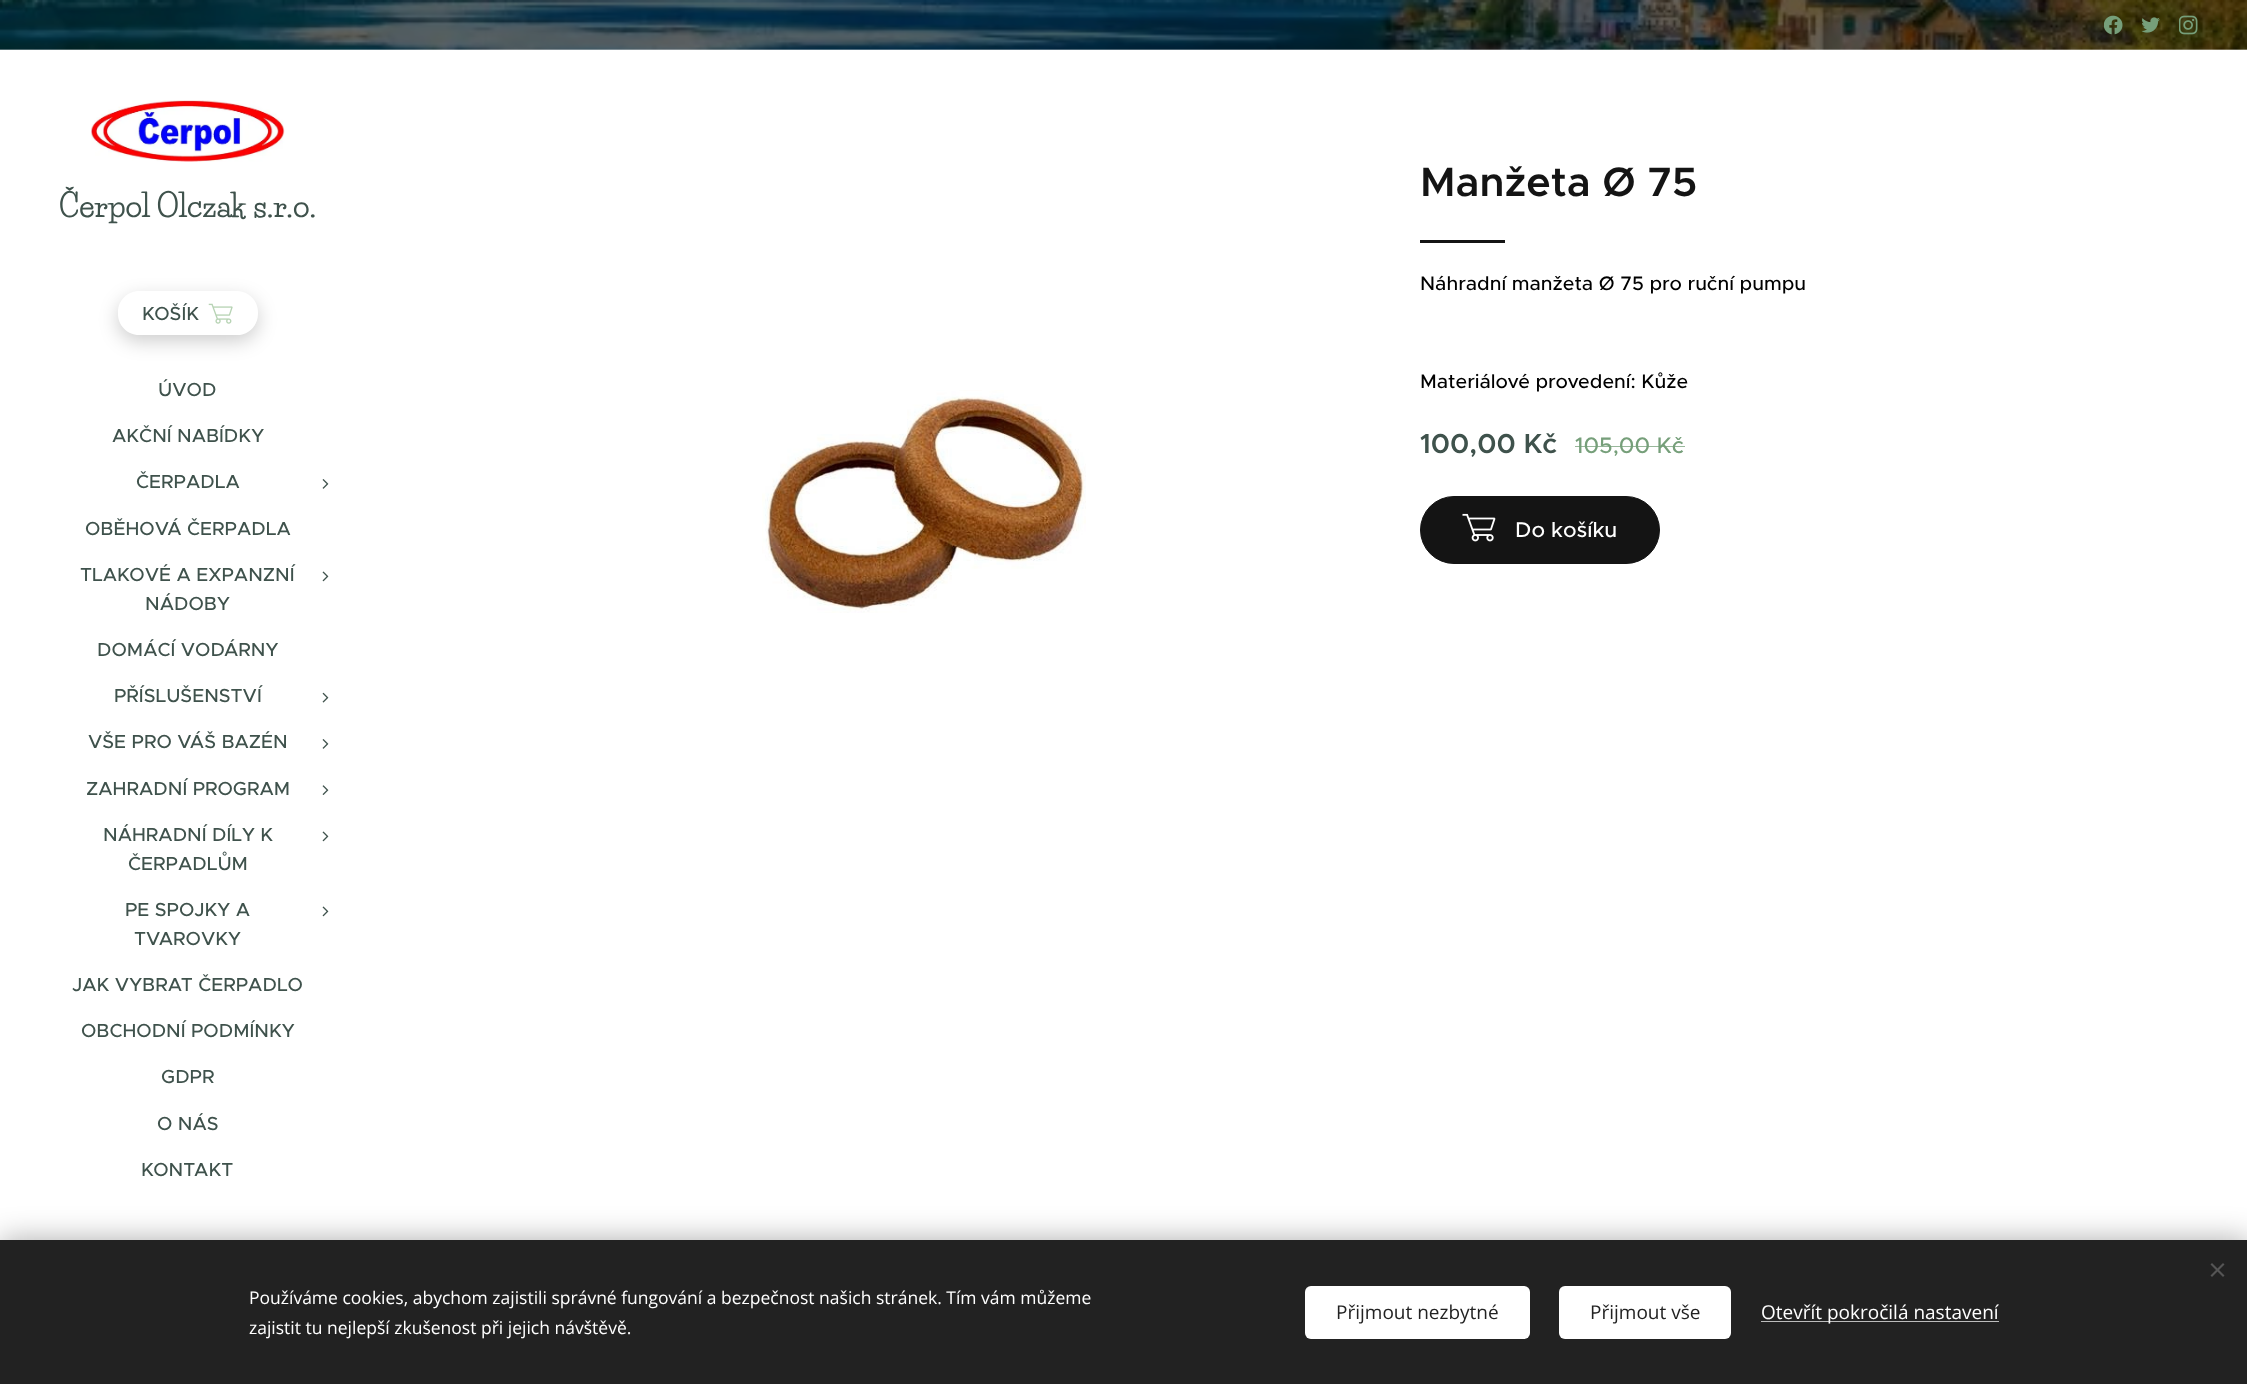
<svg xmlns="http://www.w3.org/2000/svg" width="2247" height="1384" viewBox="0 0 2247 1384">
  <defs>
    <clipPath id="clip1"><path d="M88 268H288V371H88ZM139 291H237C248.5 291 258 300.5 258 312V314C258 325.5 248.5 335 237 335H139C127.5 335 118 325.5 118 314V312C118 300.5 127.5 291 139 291Z" clip-rule="evenodd"/></clipPath>
    <filter id="blur1" x="-50%" y="-200%" width="200%" height="500%"><feGaussianBlur stdDeviation="9.5"/></filter>
    <filter id="blur2" x="-50%" y="-200%" width="200%" height="500%"><feGaussianBlur stdDeviation="15.5"/></filter>
  </defs>
  <rect width="100%" height="100%" fill="#ffffff"/>
  <image x="0" y="0" width="2247" height="50" href="img1.png"/>
  <image x="2104" y="15" width="19" height="20" href="img2.png"/>
  <image x="2141" y="17" width="19" height="16" href="img3.png"/>
  <image x="2179" y="15" width="19" height="20" href="img4.png"/>
  <rect x="0" y="49" width="2247" height="1" fill="#ffffff" fill-opacity="0.3"/>
  <image x="91" y="100" width="194" height="62" href="img5.png"/>
  <text x="59" y="217" font-family="Life Savers" font-size="31.25" font-weight="bold" fill="#3f524c">Čerpol Olczak s.r.o.</text>
  <g clip-path="url(#clip1)">
    <rect x="118" y="298" width="140" height="43" rx="21" fill="#000000" fill-opacity="0.2" filter="url(#blur1)"/>
  </g>
  <rect x="118" y="291" width="140" height="44" rx="21" fill="#ffffff" fill-opacity="0.2"/>
  <text x="142" y="320" font-family="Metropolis" font-size="19" font-weight="500" fill="#3f524c">KOŠÍK</text>
  <image x="208" y="303" width="25" height="21" href="img6.png"/>
  <text x="158" y="396" font-family="Metropolis" font-size="19" font-weight="500" fill="#3f524c">ÚVOD</text>
  <text x="112" y="442" font-family="Metropolis" font-size="19" font-weight="500" fill="#3f524c">AKČNÍ NABÍDKY</text>
  <text x="136" y="488" font-family="Metropolis" font-size="19" font-weight="500" fill="#3f524c">ČERPADLA</text>
  <image x="322" y="479" width="7" height="10" href="img7.png"/>
  <text x="85" y="535" font-family="Metropolis" font-size="19" font-weight="500" fill="#3f524c">OBĚHOVÁ ČERPADLA</text>
  <text x="80" y="581" font-family="Metropolis" font-size="19" font-weight="500" fill="#3f524c">TLAKOVÉ A EXPANZNÍ</text>
  <text x="145" y="610" font-family="Metropolis" font-size="19" font-weight="500" fill="#3f524c">NÁDOBY</text>
  <image x="322" y="571" width="7" height="11" href="img8.png"/>
  <text x="97" y="656" font-family="Metropolis" font-size="19" font-weight="500" fill="#3f524c">DOMÁCÍ VODÁRNY</text>
  <text x="114" y="702" font-family="Metropolis" font-size="19" font-weight="500" fill="#3f524c">PŘÍSLUŠENSTVÍ</text>
  <image x="322" y="692" width="7" height="11" href="img9.png"/>
  <text x="88" y="748" font-family="Metropolis" font-size="19" font-weight="500" fill="#3f524c">VŠE PRO VÁŠ BAZÉN</text>
  <image x="322" y="739" width="7" height="10" href="img7.png"/>
  <text x="86" y="795" font-family="Metropolis" font-size="19" font-weight="500" fill="#3f524c">ZAHRADNÍ PROGRAM</text>
  <image x="322" y="785" width="7" height="10" href="img10.png"/>
  <text x="103" y="841" font-family="Metropolis" font-size="19" font-weight="500" fill="#3f524c">NÁHRADNÍ DÍLY K</text>
  <text x="128" y="870" font-family="Metropolis" font-size="19" font-weight="500" fill="#3f524c">ČERPADLŮM</text>
  <image x="322" y="831" width="7" height="11" href="img8.png"/>
  <text x="125" y="916" font-family="Metropolis" font-size="19" font-weight="500" fill="#3f524c">PE SPOJKY A</text>
  <text x="134" y="945" font-family="Metropolis" font-size="19" font-weight="500" fill="#3f524c">TVAROVKY</text>
  <image x="322" y="906" width="7" height="11" href="img8.png"/>
  <text x="72" y="991" font-family="Metropolis" font-size="19" font-weight="500" fill="#3f524c">JAK VYBRAT ČERPADLO</text>
  <text x="81" y="1037" font-family="Metropolis" font-size="19" font-weight="500" fill="#3f524c">OBCHODNÍ PODMÍNKY</text>
  <text x="161" y="1083" font-family="Metropolis" font-size="19" font-weight="500" fill="#3f524c">GDPR</text>
  <text x="157" y="1130" font-family="Metropolis" font-size="19" font-weight="500" fill="#3f524c">O NÁS</text>
  <text x="141" y="1176" font-family="Metropolis" font-size="19" font-weight="500" fill="#3f524c">KONTAKT</text>
  <text x="1420" y="196" font-family="Metropolis" font-size="41.25" font-weight="600" fill="#141414">Manžeta Ø 75</text>
  <rect x="1420" y="240" width="85" height="3" fill="#141414"/>
  <image x="762" y="390" width="324" height="223" href="img11.png"/>
  <text x="1420" y="290" font-family="Metropolis" font-size="19.6" font-weight="500" fill="#000000">Náhradní manžeta Ø 75 pro ruční pumpu</text>
  <text x="1420" y="388" font-family="Metropolis" font-size="19.6" font-weight="500" fill="#000000">Materiálové provedení: Kůže</text>
  <text x="1420" y="453" font-family="Metropolis" font-size="27.5" font-weight="600" fill="#3f524c">100,00 Kč</text>
  <text x="1575" y="453" font-family="Metropolis" font-size="22.5" font-weight="500" fill="#769f7a">105,00 Kč</text>
  <rect x="1575" y="446" width="110" height="1" fill="#769f7a" fill-opacity="0.75"/>
  <rect x="1420.5" y="496.5" width="239" height="67" rx="33.5" fill="#141414" stroke="#141414"/>
  <image x="1462" y="513" width="34" height="29" href="img12.png"/>
  <text x="1515" y="537" font-family="Metropolis" font-size="21.5" font-weight="500" fill="#ffffff">Do košíku</text>
  <rect x="0" y="1240" width="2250" height="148" fill="#000000" fill-opacity="0.33" filter="url(#blur2)"/>
  <rect x="0" y="1240" width="2247" height="144" fill="#222222"/>
  <path d="M2210.5 1275.5L2223 1263L2224.5 1264.5L2212 1277Z" fill="#555555"/>
  <path d="M2212 1263L2224.5 1275.5L2223 1277L2210.5 1264.5Z" fill="#555555"/>
  <text x="249" y="1304" font-family="Open Sans" font-size="17.5" fill="#ffffff">Používáme cookies, abychom zajistili správné fungování a bezpečnost našich stránek. Tím vám můžeme</text>
  <text x="249" y="1334" font-family="Open Sans" font-size="17.5" fill="#ffffff">zajistit tu nejlepší zkušenost při jejich návštěvě.</text>
  <rect x="1305" y="1286" width="225" height="53" rx="6" fill="#ffffff"/>
  <text x="1336" y="1319" font-family="Open Sans" font-size="19" fill="#222222">Přijmout nezbytné</text>
  <rect x="1559" y="1286" width="172" height="53" rx="6" fill="#ffffff"/>
  <text x="1590" y="1319" font-family="Open Sans" font-size="19" fill="#222222">Přijmout vše</text>
  <rect x="1761" y="1321" width="238" height="1" fill="#bdbdbd"/>
  <text x="1761" y="1319" font-family="Open Sans" font-size="19" fill="#ffffff">Otevřít pokročilá nastavení</text>
</svg>
